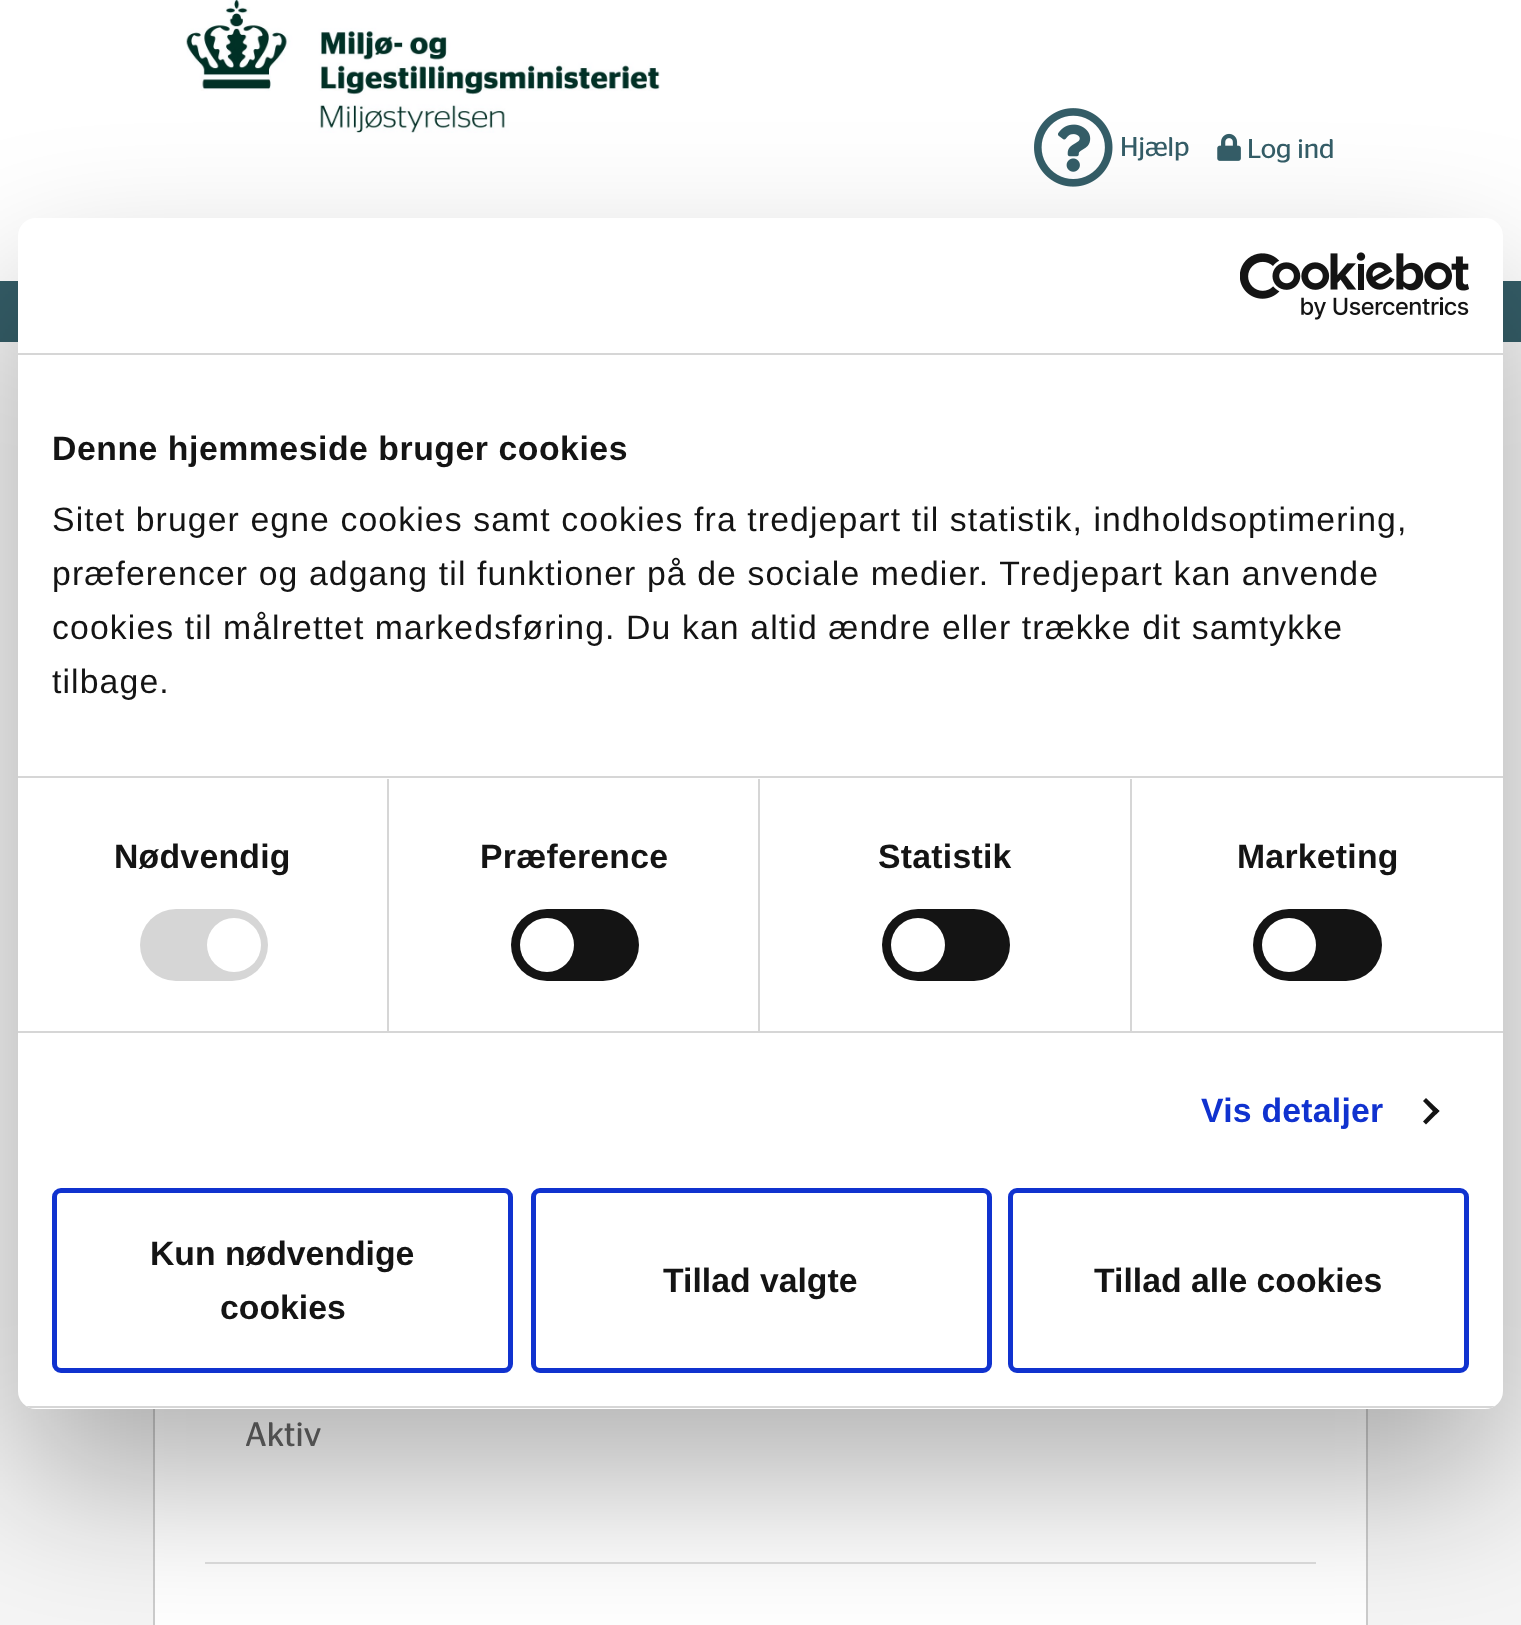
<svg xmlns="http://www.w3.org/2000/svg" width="1521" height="1625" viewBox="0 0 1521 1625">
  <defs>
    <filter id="blur1" x="-50%" y="-200%" width="200%" height="500%"><feGaussianBlur stdDeviation="76.5"/></filter>
    <clipPath id="clip1"><rect x="18" y="218" width="1485" height="1191" rx="18"/></clipPath>
  </defs>
  <rect width="100%" height="100%" fill="#f5f5f5"/>
  <rect x="0" y="0" width="1521" height="281" fill="#ffffff"/>
  <image x="186" y="0" width="474" height="133" href="img1.png"/>
  <image x="1034" y="108" width="79" height="79" href="img2.png"/>
  <text x="1120" y="156" font-family="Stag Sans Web" font-size="27" fill="#345d67">Hjælp</text>
  <image x="1217" y="133" width="24" height="28" href="img3.png"/>
  <text x="1247" y="158" font-family="Stag Sans Web" font-size="27" fill="#345d67">Log ind</text>
  <rect x="0" y="281" width="1521" height="61" fill="#345d67"/>
  <rect x="155" y="1409" width="1211" height="216" fill="#ffffff"/>
  <rect x="154" y="444" width="1213" height="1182" fill="none" stroke="#cccccc" stroke-width="2"/>
  <rect x="205" y="1562" width="1111" height="2" fill="#dfdfdf"/>
  <text x="245" y="1446" font-family="Stag Sans Web" font-size="34" fill="#666666">Aktiv</text>
  <rect x="18" y="290" width="1485" height="1191" rx="18" fill="#000000" fill-opacity="0.3" filter="url(#blur1)"/>
  <rect x="18" y="218" width="1485" height="1191" rx="18" fill="#ffffff"/>
  <rect x="18" y="353" width="1485" height="2" fill="#d6d6d6"/>
  <image x="1240" y="252" width="229" height="68" href="img4.png"/>
  <rect x="18" y="776" width="1485" height="2" fill="#d6d6d6"/>
  <text x="52" y="460" font-family="Liberation Sans" font-size="33.75" font-weight="bold" letter-spacing="0.55" fill="#141414">Denne hjemmeside bruger cookies</text>
  <text x="52" y="531" font-family="Liberation Sans" font-size="33.75" letter-spacing="1.12" fill="#141414">Sitet bruger egne cookies samt cookies fra tredjepart til statistik, indholdsoptimering,</text>
  <text x="52" y="585" font-family="Liberation Sans" font-size="33.75" letter-spacing="1.12" fill="#141414">præferencer og adgang til funktioner på de sociale medier. Tredjepart kan anvende</text>
  <text x="52" y="639" font-family="Liberation Sans" font-size="33.75" letter-spacing="1.12" fill="#141414">cookies til målrettet markedsføring. Du kan altid ændre eller trække dit samtykke</text>
  <text x="52" y="693" font-family="Liberation Sans" font-size="33.75" letter-spacing="1.12" fill="#141414">tilbage.</text>
  <rect x="18" y="1031" width="1485" height="2" fill="#d6d6d6"/>
  <rect x="387" y="779" width="2" height="252" fill="#d6d6d6"/>
  <text x="114" y="868" font-family="Liberation Sans" font-size="33.75" font-weight="bold" letter-spacing="0.25" fill="#141414">Nødvendig</text>
  <rect x="140" y="909" width="128" height="72" rx="36" fill="#d6d6d6"/>
  <circle cx="234" cy="945" r="27" fill="#ffffff"/>
  <rect x="758" y="779" width="2" height="252" fill="#d6d6d6"/>
  <text x="480" y="868" font-family="Liberation Sans" font-size="33.75" font-weight="bold" letter-spacing="0.25" fill="#141414">Præference</text>
  <rect x="511" y="909" width="128" height="72" rx="36" fill="#141414"/>
  <circle cx="547" cy="945" r="27" fill="#ffffff"/>
  <rect x="1130" y="779" width="2" height="252" fill="#d6d6d6"/>
  <text x="878" y="868" font-family="Liberation Sans" font-size="33.75" font-weight="bold" letter-spacing="0.25" fill="#141414">Statistik</text>
  <rect x="882" y="909" width="128" height="72" rx="36" fill="#141414"/>
  <circle cx="918" cy="945" r="27" fill="#ffffff"/>
  <text x="1237" y="868" font-family="Liberation Sans" font-size="33.75" font-weight="bold" letter-spacing="0.25" fill="#141414">Marketing</text>
  <rect x="1253" y="909" width="129" height="72" rx="36" fill="#141414"/>
  <circle cx="1289" cy="945" r="27" fill="#ffffff"/>
  <text x="1201" y="1122" font-family="Liberation Sans" font-size="33.75" font-weight="bold" letter-spacing="0.25" fill="#1032cf">Vis detaljer</text>
  <path d="M1426 1098L1439.5 1111L1436 1114.5L1423 1101Z" fill="#141414"/>
  <path d="M1436 1108L1439.5 1111L1426 1124.5L1423 1121.5Z" fill="#141414"/>
  <g clip-path="url(#clip1)">
    <rect x="18" y="1406" width="1485" height="2" fill="#d6d6d6"/>
  </g>
  <rect x="54.5" y="1190.5" width="456" height="180" rx="6.5" fill="none" stroke="#1032cf" stroke-width="5"/>
  <text x="150" y="1265" font-family="Liberation Sans" font-size="33.75" font-weight="bold" fill="#141414">Kun nødvendige</text>
  <text x="220" y="1319" font-family="Liberation Sans" font-size="33.75" font-weight="bold" fill="#141414">cookies</text>
  <rect x="533.5" y="1190.5" width="456" height="180" rx="6.5" fill="none" stroke="#1032cf" stroke-width="5"/>
  <text x="663" y="1292" font-family="Liberation Sans" font-size="33.75" font-weight="bold" fill="#141414">Tillad valgte</text>
  <rect x="1010.5" y="1190.5" width="456" height="180" rx="6.5" fill="none" stroke="#1032cf" stroke-width="5"/>
  <text x="1094" y="1292" font-family="Liberation Sans" font-size="33.75" font-weight="bold" fill="#141414">Tillad alle cookies</text>
</svg>
